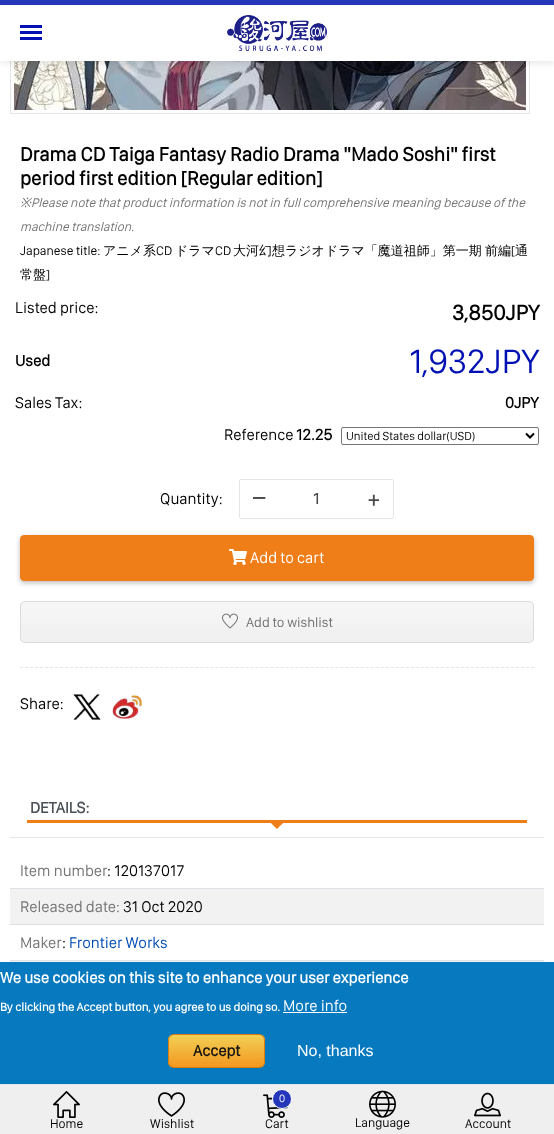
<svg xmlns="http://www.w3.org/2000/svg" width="554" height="1134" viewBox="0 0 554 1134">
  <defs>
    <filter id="blur1" x="-50%" y="-200%" width="200%" height="500%"><feGaussianBlur stdDeviation="3.5"/></filter>
    <filter id="blur2" x="-50%" y="-200%" width="200%" height="500%"><feGaussianBlur stdDeviation="2.5"/></filter>
    <clipPath id="clip1"><rect x="20" y="601" width="514" height="42" rx="5"/></clipPath>
    <linearGradient id="g1" gradientUnits="userSpaceOnUse" x1="21" y1="618" x2="21" y2="630"><stop offset="0" stop-color="#f5f5f5"/><stop offset="1" stop-color="#f1f1f1"/></linearGradient>
    <clipPath id="clip2"><rect x="168" y="1034" width="97" height="34" rx="6"/></clipPath>
    <linearGradient id="g2" gradientUnits="userSpaceOnUse" x1="169" y1="1035" x2="169" y2="1067"><stop offset="0" stop-color="#f2cf55"/><stop offset="1" stop-color="#f49820"/></linearGradient>
  </defs>
  <rect width="100%" height="100%" fill="#ffffff"/>
  <rect x="10.5" y="-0.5" width="519" height="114" fill="none" stroke="#e5e5e5"/>
  <image x="14" y="61" width="512" height="49" href="img2.png"/>
  <rect x="1" y="2" width="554" height="61" fill="#000000" fill-opacity="0.1" filter="url(#blur1)"/>
  <rect x="0" y="5" width="554" height="56" fill="#ffffff"/>
  <rect x="0" y="0" width="554" height="5" fill="#2436b9"/>
  <rect x="20" y="31" width="22" height="3" fill="#0010b3"/>
  <rect x="20" y="25" width="22" height="3" fill="#0010b3"/>
  <rect x="20" y="37" width="22" height="3" fill="#0010b3"/>
  <image x="227" y="15" width="100" height="36" href="img1.png"/>
  <text x="20" y="161" font-family="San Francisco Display" font-size="20" font-weight="bold" fill="#000000">Drama CD Taiga Fantasy Radio Drama "Mado Soshi" first</text>
  <text x="20" y="185" font-family="San Francisco Display" font-size="20" font-weight="bold" fill="#000000">period first edition [Regular edition]</text>
  <text x="20" y="207" font-family="Noto Sans" font-size="13" font-style="italic" fill="#747474">※</text>
  <text x="31" y="207" font-family="San Francisco Display" font-size="13" font-style="italic" fill="#747474">Please note that product information is not in full comprehensive meaning because of the</text>
  <text x="20" y="231" font-family="San Francisco Display" font-size="13" font-style="italic" fill="#747474">machine translation.</text>
  <text x="20" y="255" font-family="San Francisco Display" font-size="13" fill="#000000">Japanese title:</text>
  <text x="103" y="255" font-family="WenQuanYi Zen Hei" font-size="13" font-weight="500" fill="#000000">アニメ系</text>
  <text x="156" y="255" font-family="San Francisco Display" font-size="13" fill="#000000">CD</text>
  <text x="175" y="255" font-family="WenQuanYi Zen Hei" font-size="13" font-weight="500" fill="#000000">ドラマ</text>
  <text x="215" y="255" font-family="San Francisco Display" font-size="13" fill="#000000">CD</text>
  <text x="233" y="255" font-family="WenQuanYi Zen Hei" font-size="13" font-weight="500" fill="#000000">大河幻想ラジオドラマ「魔道祖師」第一期</text>
  <text x="485" y="255" font-family="WenQuanYi Zen Hei" font-size="13" font-weight="500" fill="#000000">前編 通</text>
  <text x="511" y="255" font-family="San Francisco Display" font-size="13" fill="#000000">[</text>
  <text x="20" y="279" font-family="WenQuanYi Zen Hei" font-size="13" font-weight="500" fill="#000000">常盤</text>
  <text x="46" y="279" font-family="San Francisco Display" font-size="13" fill="#000000">]</text>
  <text x="15" y="313" font-family="San Francisco Display" font-size="16" fill="#000000">Listed price:</text>
  <text x="452" y="320" font-family="San Francisco Display" font-size="22" font-weight="bold" fill="#000000">3,850JPY</text>
  <text x="15" y="366" font-family="San Francisco Display" font-size="16" font-weight="bold" fill="#000000">Used</text>
  <text x="409" y="373" font-family="San Francisco Display" font-size="35" fill="#0010b3">1,932JPY</text>
  <text x="15" y="408" font-family="San Francisco Display" font-size="16" fill="#000000">Sales Tax:</text>
  <text x="505" y="408" font-family="San Francisco Display" font-size="16" font-weight="bold" fill="#000000">0JPY</text>
  <text x="224" y="440" font-family="San Francisco Display" font-size="16" fill="#000000">Reference</text>
  <text x="296" y="440" font-family="San Francisco Display" font-size="16" font-weight="bold" fill="#000000">12.25</text>
  <rect x="341.5" y="427.5" width="197" height="17" rx="1.5" fill="none" stroke="#767676"/>
  <path d="M526 433.5L530 437.5L534 433.5" fill="none" stroke="#000000" stroke-width="2"/>
  <text x="346" y="440" font-family="San Francisco Display" font-size="12" fill="#000000">United States dollar(USD)</text>
  <text x="160" y="504" font-family="San Francisco Display" font-size="16" fill="#000000">Quantity:</text>
  <rect x="239.5" y="479.5" width="154" height="39" rx="1.5" fill="none" stroke="#e5e5e5"/>
  <text x="253" y="504" font-family="San Francisco Display" font-size="21" font-weight="bold" fill="#4a4a4a">–</text>
  <text x="313" y="504" font-family="San Francisco Display" font-size="16" font-weight="bold" fill="#4a4a4a">1</text>
  <text x="368" y="506" font-family="San Francisco Display" font-size="21" font-weight="bold" fill="#4a4a4a">+</text>
  <rect x="20" y="537" width="514" height="46" rx="4" fill="#000000" fill-opacity="0.26" filter="url(#blur2)"/>
  <rect x="20.5" y="535.5" width="513" height="45" rx="3.5" fill="#f07e18" stroke="#f07e18"/>
  <image x="229" y="549" width="18" height="16" href="img3.png"/>
  <text x="250" y="563" font-family="San Francisco Display" font-size="16" fill="#ffffff">Add to cart</text>
  <g clip-path="url(#clip1)">
    <rect x="20" y="602" width="514" height="40" fill="url(#g1)"/>
  </g>
  <rect x="20.5" y="601.5" width="513" height="41" rx="4.5" fill="none" stroke="#dcdcdc"/>
  <image x="222" y="613" width="16" height="16" href="img4.png"/>
  <text x="246" y="627" font-family="San Francisco Display" font-size="14" fill="#6e6e6e">Add to wishlist</text>
  <path d="M20 667.5H534" fill="none" stroke="#e5e5e5" stroke-dasharray="3 2.01"/>
  <text x="20" y="709" font-family="San Francisco Display" font-size="16" fill="#000000">Share:</text>
  <image x="73" y="694" width="28" height="26" href="img5.png"/>
  <image x="112" y="695" width="30" height="24" href="img6.png"/>
  <rect x="10" y="837" width="534" height="1" fill="#e5e5e5"/>
  <image x="27" y="820" width="500" height="9" href="img7.png"/>
  <text x="30" y="813" font-family="San Francisco Display" font-size="16" font-weight="bold" fill="#495057">DETAILS:</text>
  <text x="20" y="876" font-family="San Francisco Display" font-size="16" fill="#747474">Item number</text>
  <text x="107" y="876" font-family="San Francisco Display" font-size="16" fill="#000000">: 120137017</text>
  <rect x="10" y="889" width="534" height="35" fill="#f2f2f2"/>
  <rect x="10" y="888" width="534" height="1" fill="#dee2e6"/>
  <rect x="10" y="924" width="534" height="1" fill="#dee2e6"/>
  <text x="20" y="912" font-family="San Francisco Display" font-size="16" fill="#747474">Released date:</text>
  <text x="123" y="912" font-family="San Francisco Display" font-size="16" fill="#000000">31 Oct 2020</text>
  <text x="20" y="948" font-family="San Francisco Display" font-size="16" fill="#747474">Maker</text>
  <text x="62" y="948" font-family="San Francisco Display" font-size="16" fill="#000000">:</text>
  <text x="69" y="948" font-family="San Francisco Display" font-size="16" fill="#004cb3">Frontier Works</text>
  <rect x="10" y="961" width="534" height="1" fill="#f2f2f2"/>
  <rect x="10" y="960" width="534" height="1" fill="#dee2e6"/>
  <rect x="0" y="1085" width="554" height="49" fill="#efefef"/>
  <rect x="0" y="1084" width="554" height="1" fill="#e5e5e5"/>
  <image x="53" y="1091" width="27" height="27" href="img8.png"/>
  <text x="50" y="1128" font-family="San Francisco Display" font-size="13" fill="#000000">Home</text>
  <image x="158" y="1092" width="27" height="25" href="img9.png"/>
  <text x="150" y="1128" font-family="San Francisco Display" font-size="13" fill="#000000">Wishlist</text>
  <image x="263" y="1094" width="25" height="24" href="img10.png"/>
  <circle cx="282" cy="1099" r="9.5" fill="#2436b9" stroke="#ffffff"/>
  <text x="279" y="1102" font-family="San Francisco Display" font-size="11" fill="#ffffff">0</text>
  <text x="265" y="1128" font-family="San Francisco Display" font-size="13" fill="#000000">Cart</text>
  <image x="369" y="1090" width="27" height="28" href="img11.png"/>
  <text x="355" y="1127" font-family="San Francisco Display" font-size="13" fill="#000000">Language</text>
  <image x="474" y="1092" width="27" height="25" href="img12.png"/>
  <text x="465" y="1128" font-family="San Francisco Display" font-size="13" fill="#000000">Account</text>
  <rect x="0" y="962" width="554" height="122" fill="#0779bf"/>
  <text x="0" y="983" font-family="San Francisco Display" font-size="16" font-weight="bold" fill="#ffffff">We use cookies on this site to enhance your user experience</text>
  <text x="0" y="1011" font-family="San Francisco Display" font-size="12" font-weight="bold" fill="#ffffff">By clicking the Accept button, you agree to us doing so.</text>
  <text x="283" y="1011" font-family="San Francisco Display" font-size="16" fill="#ffffff">More info</text>
  <rect x="283" y="1012" width="64" height="1" fill="#ffffff"/>
  <g clip-path="url(#clip2)">
    <rect x="168" y="1035" width="97" height="32" fill="url(#g2)"/>
  </g>
  <rect x="168.5" y="1034.5" width="96" height="33" rx="5.5" fill="none" stroke="#da7c0c"/>
  <text x="193" y="1056" font-family="San Francisco Display" font-size="16" font-weight="bold" fill="#131313">Accept</text>
  <text x="297" y="1056" font-family="Liberation Sans" font-size="16" fill="#ffffff">No, thanks</text>
</svg>
